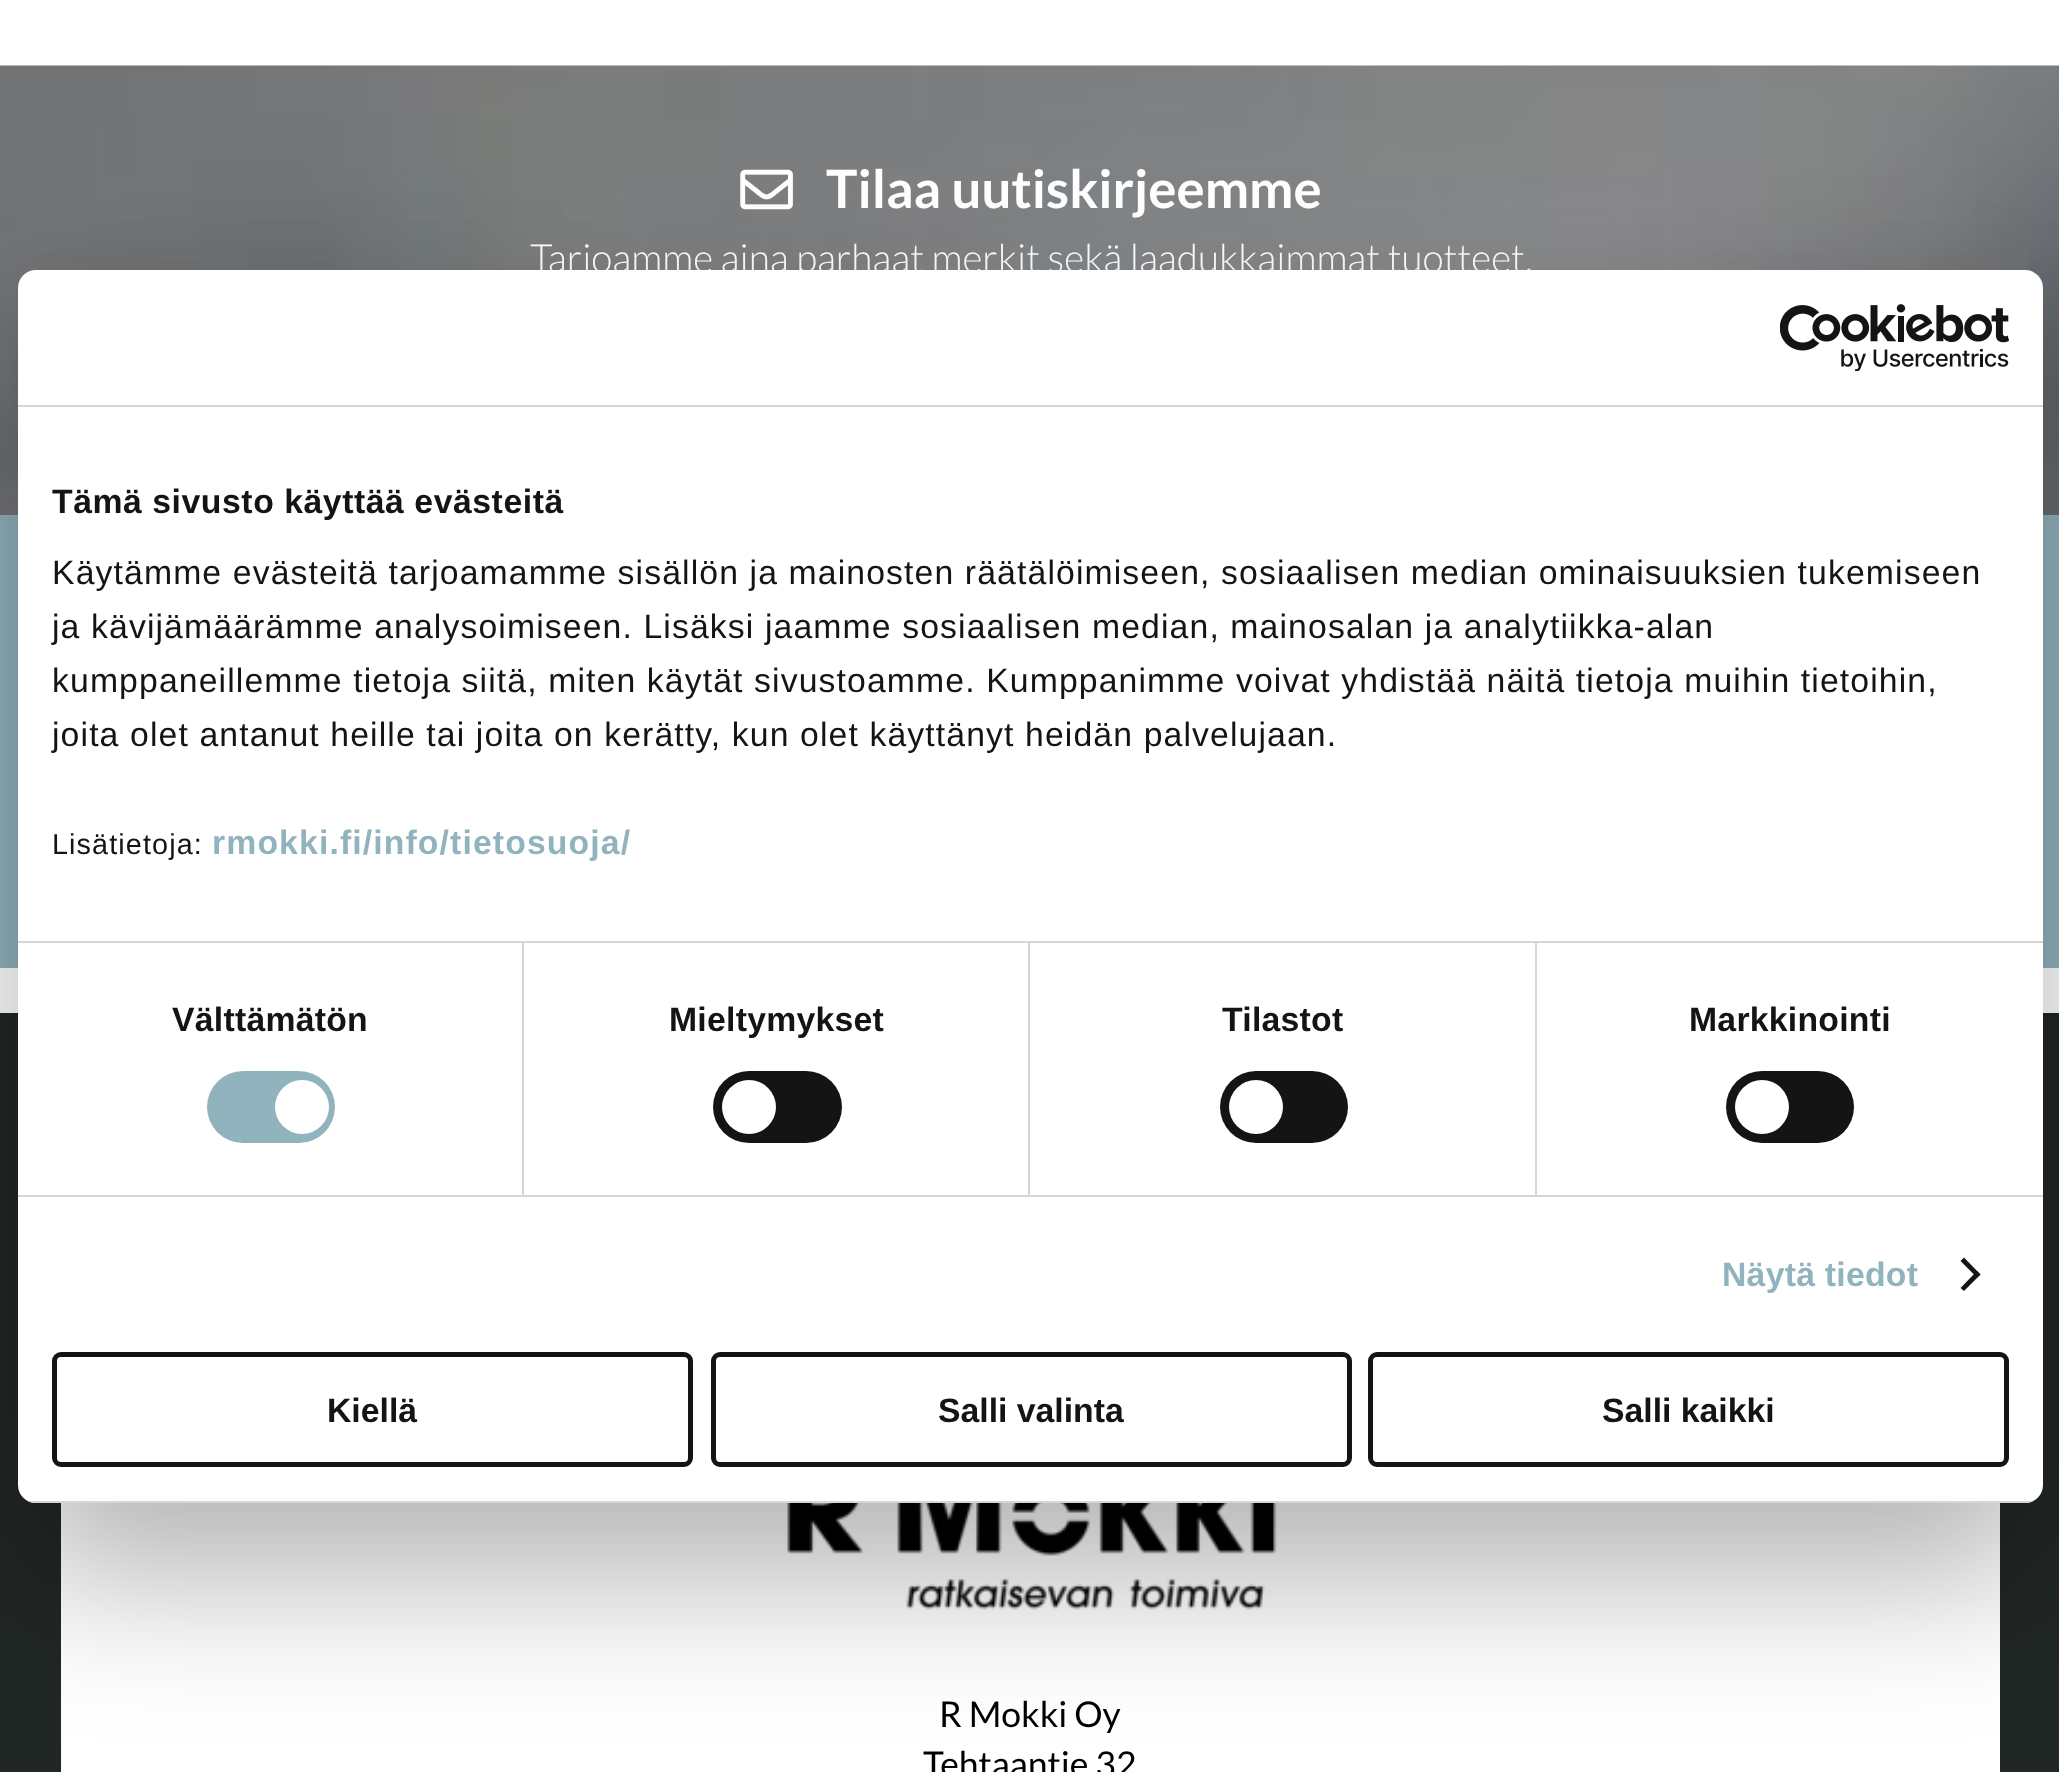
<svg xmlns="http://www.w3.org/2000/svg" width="2059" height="1772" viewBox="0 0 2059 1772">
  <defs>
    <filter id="blur1" x="-50%" y="-200%" width="200%" height="500%"><feGaussianBlur stdDeviation="76.5"/></filter>
    <clipPath id="clip1"><rect x="18" y="270" width="2025" height="1233" rx="18"/></clipPath>
  </defs>
  <rect width="100%" height="100%" fill="#ffffff"/>
  <image x="0" y="65" width="2059" height="450" href="img1.png"/>
  <image x="740" y="169" width="53" height="41" href="img2.png"/>
  <text x="826" y="208" font-family="Lato" font-size="52.75" font-weight="bold" fill="#ffffff">Tilaa uutiskirjeemme</text>
  <text x="530" y="272" font-family="Lato" font-size="38.9" font-weight="300" fill="#ffffff">Tarjoamme aina parhaat merkit sekä laadukkaimmat tuotteet.</text>
  <rect x="0" y="515" width="2059" height="453" fill="#91b3bd"/>
  <rect x="0" y="1013" width="2059" height="759" fill="#212725"/>
  <rect x="61" y="1503" width="1939" height="269" fill="#ffffff"/>
  <image x="787" y="1503" width="490" height="107" href="img4.png"/>
  <rect x="18" y="342" width="2025" height="1233" rx="18" fill="#000000" fill-opacity="0.3" filter="url(#blur1)"/>
  <rect x="18" y="270" width="2025" height="1233" rx="18" fill="#ffffff"/>
  <rect x="18" y="405" width="2025" height="2" fill="#d6d6d6"/>
  <image x="1780" y="304" width="229" height="67" href="img3.png"/>
  <rect x="18" y="941" width="2025" height="2" fill="#d6d6d6"/>
  <text x="52" y="513" font-family="Liberation Sans" font-size="33.75" font-weight="bold" letter-spacing="0.55" fill="#141414">Tämä sivusto käyttää evästeitä</text>
  <text x="52" y="584" font-family="Liberation Sans" font-size="33.75" letter-spacing="1.12" fill="#141414">Käytämme evästeitä tarjoamamme sisällön ja mainosten räätälöimiseen, sosiaalisen median ominaisuuksien tukemiseen</text>
  <text x="52" y="638" font-family="Liberation Sans" font-size="33.75" letter-spacing="1.12" fill="#141414">ja kävijämäärämme analysoimiseen. Lisäksi jaamme sosiaalisen median, mainosalan ja analytiikka-alan</text>
  <text x="52" y="692" font-family="Liberation Sans" font-size="33.75" letter-spacing="1.12" fill="#141414">kumppaneillemme tietoja siitä, miten käytät sivustoamme. Kumppanimme voivat yhdistää näitä tietoja muihin tietoihin,</text>
  <text x="52" y="746" font-family="Liberation Sans" font-size="33.75" letter-spacing="1.12" fill="#141414">joita olet antanut heille tai joita on kerätty, kun olet käyttänyt heidän palvelujaan.</text>
  <text x="52" y="854" font-family="Liberation Sans" font-size="28.75" letter-spacing="1.12" fill="#141414">Lisätietoja:</text>
  <text x="212" y="854" font-family="Liberation Sans" font-size="33.75" font-weight="bold" letter-spacing="1.12" fill="#91b3bd">rmokki.fi/info/tietosuoja/</text>
  <rect x="18" y="1195" width="2025" height="2" fill="#d6d6d6"/>
  <rect x="522" y="943" width="2" height="252" fill="#d6d6d6"/>
  <text x="172" y="1031" font-family="Liberation Sans" font-size="33.75" font-weight="bold" letter-spacing="0.25" fill="#141414">Välttämätön</text>
  <rect x="207" y="1071" width="128" height="72" rx="36" fill="#91b3bd"/>
  <circle cx="302" cy="1107" r="27" fill="#ffffff"/>
  <rect x="1028" y="943" width="2" height="252" fill="#d6d6d6"/>
  <text x="669" y="1031" font-family="Liberation Sans" font-size="33.75" font-weight="bold" letter-spacing="0.25" fill="#141414">Mieltymykset</text>
  <rect x="713" y="1071" width="129" height="72" rx="36" fill="#141414"/>
  <circle cx="749" cy="1107" r="27" fill="#ffffff"/>
  <rect x="1535" y="943" width="2" height="252" fill="#d6d6d6"/>
  <text x="1222" y="1031" font-family="Liberation Sans" font-size="33.75" font-weight="bold" letter-spacing="0.25" fill="#141414">Tilastot</text>
  <rect x="1220" y="1071" width="128" height="72" rx="36" fill="#141414"/>
  <circle cx="1256" cy="1107" r="27" fill="#ffffff"/>
  <text x="1689" y="1031" font-family="Liberation Sans" font-size="33.75" font-weight="bold" letter-spacing="0.25" fill="#141414">Markkinointi</text>
  <rect x="1726" y="1071" width="128" height="72" rx="36" fill="#141414"/>
  <circle cx="1762" cy="1107" r="27" fill="#ffffff"/>
  <text x="1722" y="1286" font-family="Liberation Sans" font-size="33.75" font-weight="bold" letter-spacing="0.25" fill="#91b3bd">Näytä tiedot</text>
  <path d="M1964 1257.5L1980.5 1274.5L1977 1277.5L1960.5 1261Z" fill="#141414"/>
  <path d="M1977 1271L1980.5 1274.5L1964 1291L1960.5 1288Z" fill="#141414"/>
  <g clip-path="url(#clip1)">
    <rect x="28" y="1501" width="2005" height="2" fill="#d6d6d6"/>
  </g>
  <rect x="54.5" y="1354.5" width="636" height="110" rx="6.5" fill="none" stroke="#141414" stroke-width="5"/>
  <text x="327" y="1422" font-family="Liberation Sans" font-size="33.75" font-weight="bold" fill="#141414">Kiellä</text>
  <rect x="713.5" y="1354.5" width="636" height="110" rx="6.5" fill="none" stroke="#141414" stroke-width="5"/>
  <text x="938" y="1422" font-family="Liberation Sans" font-size="33.75" font-weight="bold" fill="#141414">Salli valinta</text>
  <rect x="1370.5" y="1354.5" width="636" height="110" rx="6.5" fill="none" stroke="#141414" stroke-width="5"/>
  <text x="1602" y="1422" font-family="Liberation Sans" font-size="33.75" font-weight="bold" fill="#141414">Salli kaikki</text>
  <text x="939" y="1727" font-family="Lato" font-size="35.5" fill="#000000">R Mokki Oy</text>
  <text x="923" y="1777" font-family="Lato" font-size="35.5" fill="#000000">Tehtaantie 32</text>
</svg>
